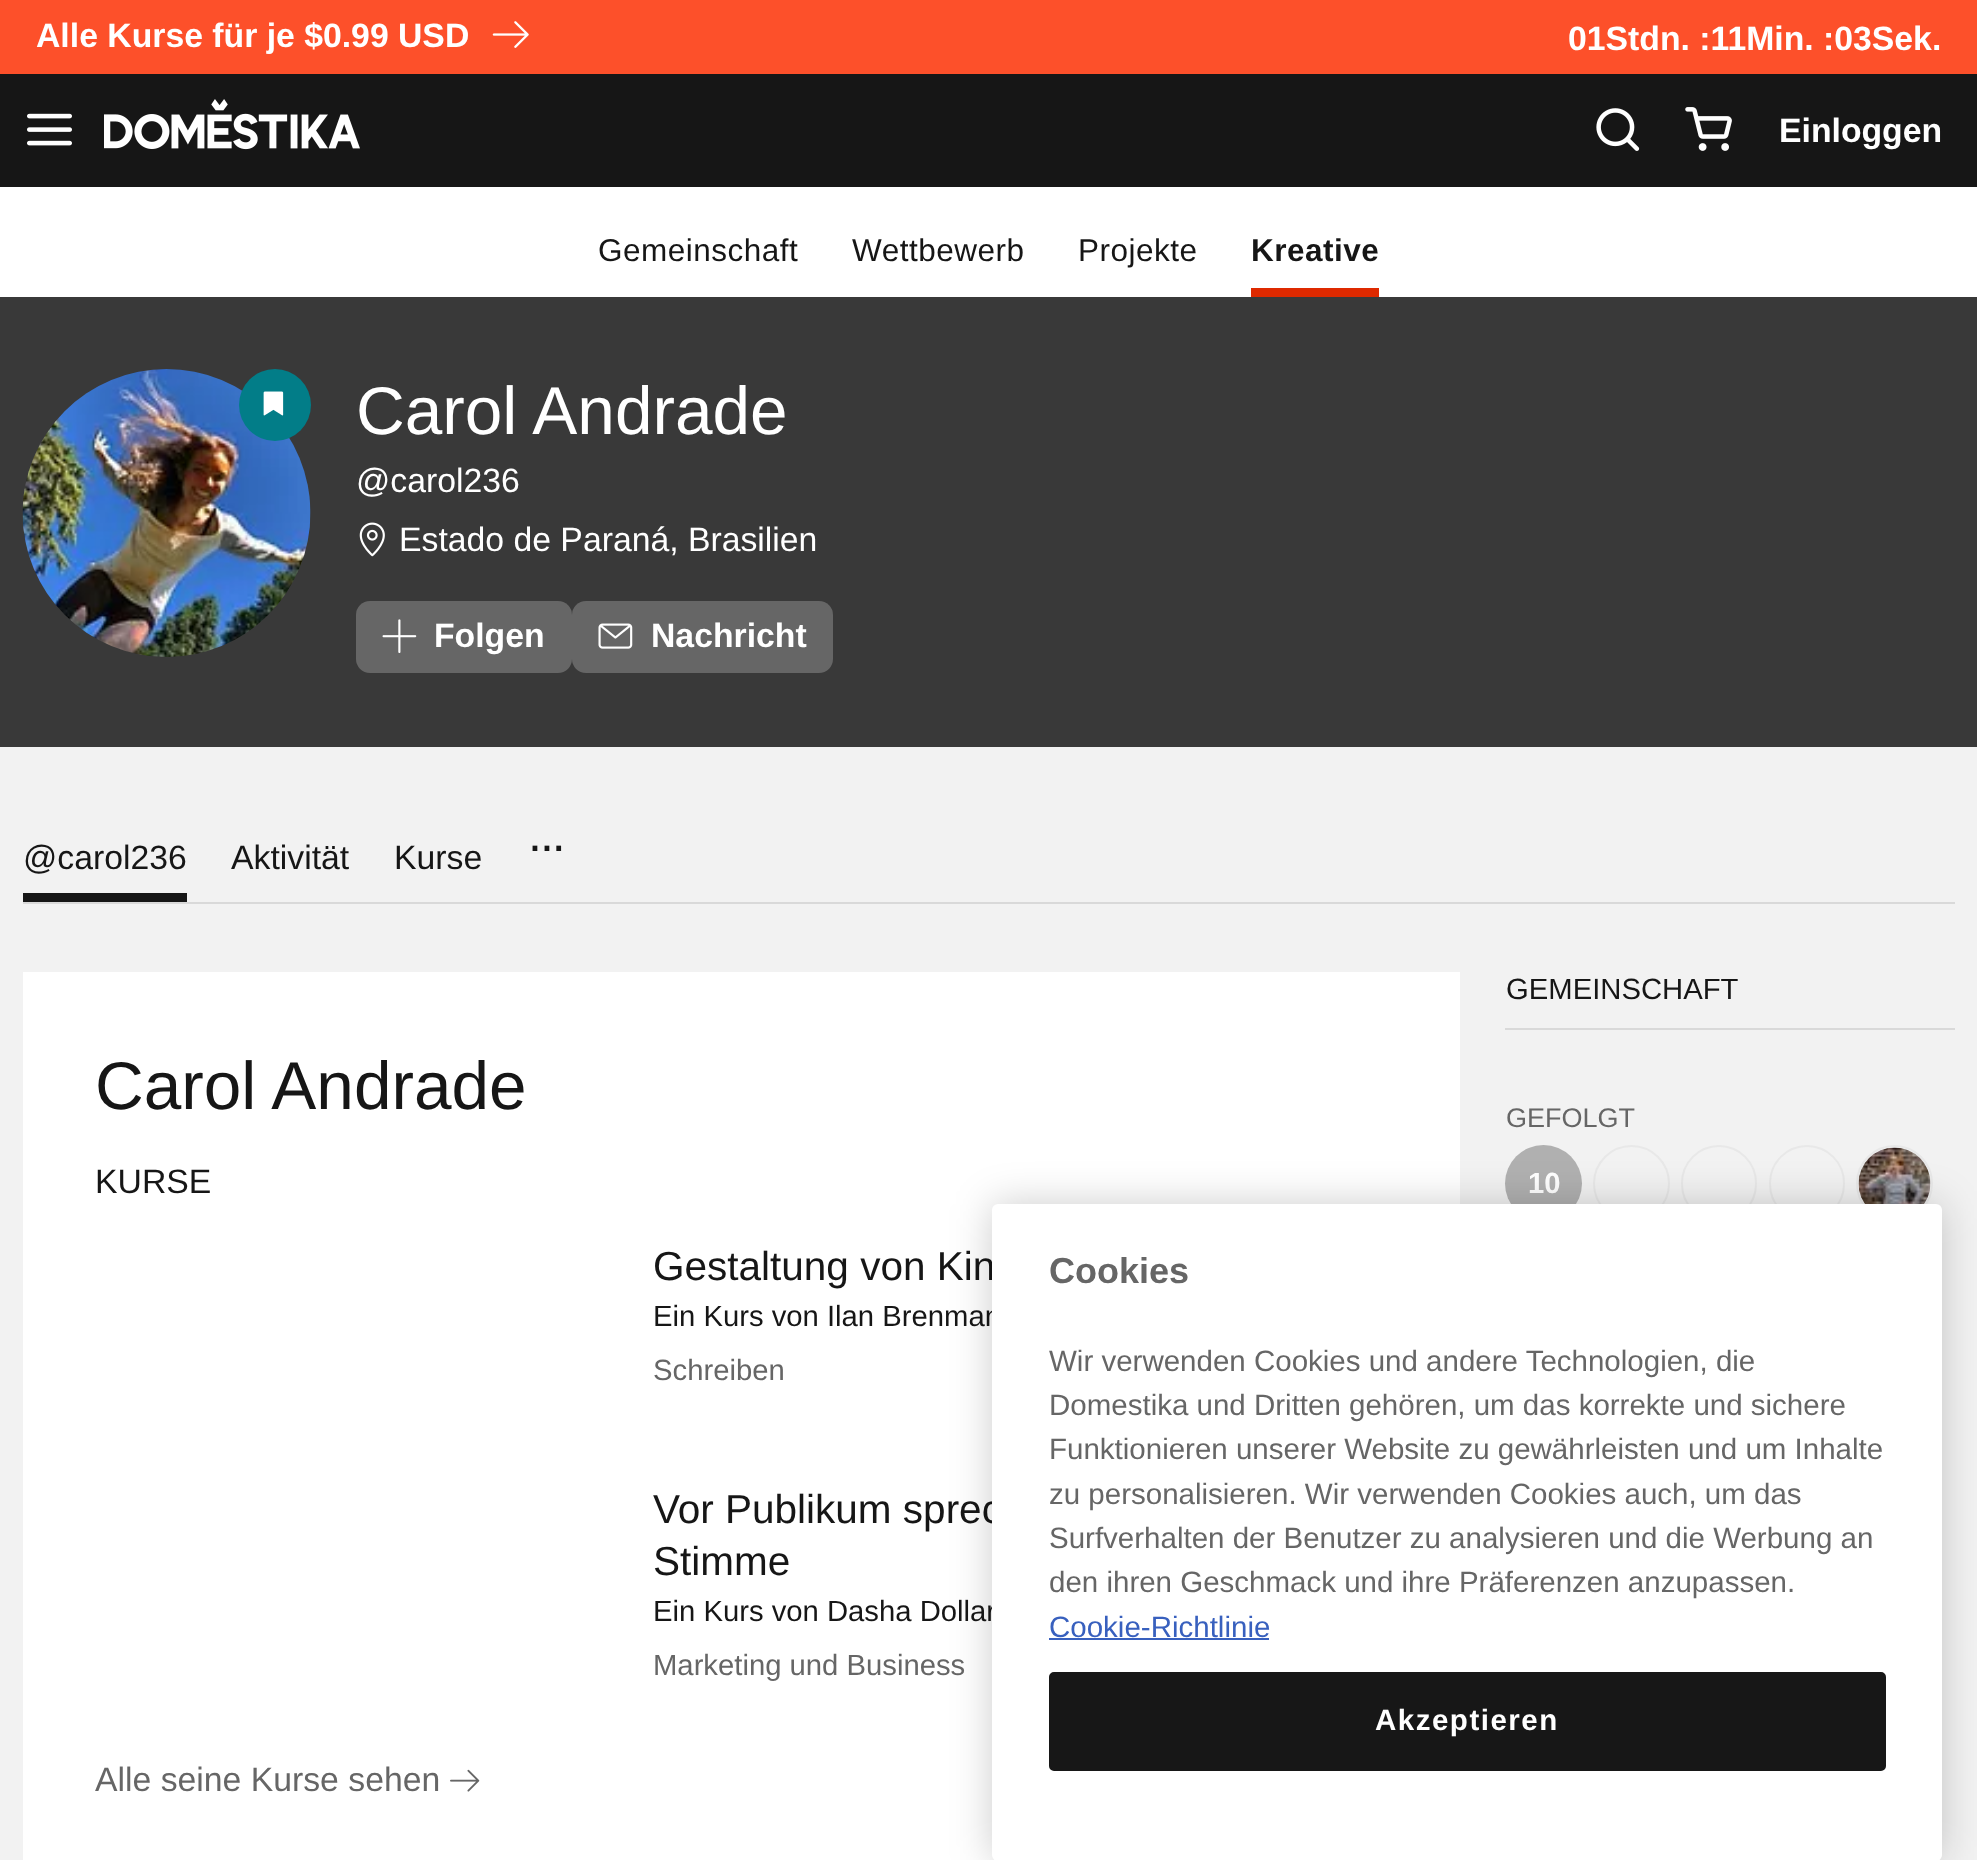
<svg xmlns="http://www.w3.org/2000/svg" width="1977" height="1860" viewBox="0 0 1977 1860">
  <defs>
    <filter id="blur1" x="-50%" y="-200%" width="200%" height="500%"><feGaussianBlur stdDeviation="20"/></filter>
  </defs>
  <rect width="100%" height="100%" fill="#f2f2f2"/>
  <rect x="0" y="0" width="1977" height="74" fill="#fd502a"/>
  <text x="36" y="47" font-family="Liberation Sans" font-size="33.75" font-weight="bold" fill="#ffffff">Alle Kurse für je $0.99</text>
  <text x="398" y="47" font-family="Liberation Sans" font-size="33.75" font-weight="bold" fill="#ffffff">USD</text>
  <image x="492" y="21" width="37" height="27" href="img1.png"/>
  <text x="1568" y="50" font-family="Liberation Sans" font-size="33.75" font-weight="bold" fill="#ffffff">01Stdn. :11Min. :03Sek.</text>
  <rect x="0" y="74" width="1977" height="113" fill="#161616"/>
  <image x="27" y="113" width="45" height="33" href="img2.png"/>
  <image x="104" y="99" width="256" height="51" href="img3.png"/>
  <image x="1596" y="108" width="44" height="43" href="img4.png"/>
  <image x="1685" y="107" width="47" height="44" href="img5.png"/>
  <text x="1779" y="142" font-family="Liberation Sans" font-size="33.75" font-weight="bold" fill="#ffffff">Einloggen</text>
  <rect x="0" y="187" width="1977" height="110" fill="#ffffff"/>
  <text x="598" y="261" font-family="Liberation Sans" font-size="31.5" letter-spacing="0.5" fill="#161616">Gemeinschaft</text>
  <text x="852" y="261" font-family="Liberation Sans" font-size="31.5" letter-spacing="0.5" fill="#161616">Wettbewerb</text>
  <text x="1078" y="261" font-family="Liberation Sans" font-size="31.5" letter-spacing="0.5" fill="#161616">Projekte</text>
  <rect x="1251" y="288" width="128" height="9" fill="#de2900"/>
  <text x="1251" y="261" font-family="Liberation Sans" font-size="31.5" font-weight="bold" letter-spacing="0.5" fill="#161616">Kreative</text>
  <rect x="0" y="297" width="1977" height="450" fill="#393939"/>
  <image x="22" y="369" width="289" height="288" href="img6.png"/>
  <circle cx="275" cy="405" r="36" fill="#027d88"/>
  <image x="263" y="391" width="21" height="25" href="img7.png"/>
  <text x="356" y="434" font-family="Liberation Sans" font-size="67.5" fill="#ffffff">Carol Andrade</text>
  <text x="356" y="492" font-family="Liberation Sans" font-size="33.75" fill="#ffffff">@carol236</text>
  <image x="359" y="522" width="26" height="35" href="img8.png"/>
  <text x="399" y="551" font-family="Liberation Sans" font-size="33.75" fill="#ffffff">Estado de Paraná, Brasilien</text>
  <rect x="356" y="601" width="216" height="72" rx="14" fill="#666666"/>
  <image x="382" y="619" width="35" height="34" href="img9.png"/>
  <text x="434" y="647" font-family="Liberation Sans" font-size="33.75" font-weight="bold" fill="#ffffff">Folgen</text>
  <rect x="572" y="601" width="261" height="72" rx="14" fill="#666666"/>
  <image x="598" y="623" width="35" height="26" href="img10.png"/>
  <text x="651" y="647" font-family="Liberation Sans" font-size="33.75" font-weight="bold" fill="#ffffff">Nachricht</text>
  <rect x="23" y="902" width="1932" height="2" fill="#d9d9d9"/>
  <rect x="23" y="893" width="164" height="9" fill="#161616"/>
  <text x="23" y="869" font-family="Liberation Sans" font-size="33.75" fill="#161616">@carol236</text>
  <text x="231" y="869" font-family="Liberation Sans" font-size="33.75" fill="#161616">Aktivität</text>
  <text x="394" y="869" font-family="Liberation Sans" font-size="33.75" fill="#161616">Kurse</text>
  <text x="528" y="851" font-family="Liberation Sans" font-size="50" letter-spacing="-2" fill="#161616">...</text>
  <rect x="23" y="972" width="1437" height="888" fill="#ffffff"/>
  <text x="95" y="1109" font-family="Liberation Sans" font-size="67.5" fill="#161616">Carol Andrade</text>
  <text x="95" y="1193" font-family="Liberation Sans" font-size="33.75" fill="#161616">KURSE</text>
  <text x="653" y="1280" font-family="Liberation Sans" font-size="40.5" fill="#161616">Gestaltung von Kin</text>
  <text x="653" y="1326" font-family="Liberation Sans" font-size="29.25" fill="#161616">Ein Kurs von Ilan Brenman</text>
  <text x="653" y="1380" font-family="Liberation Sans" font-size="29.25" fill="#666666">Schreiben</text>
  <text x="653" y="1523" font-family="Liberation Sans" font-size="40.5" fill="#161616">Vor Publikum sprec</text>
  <text x="653" y="1575" font-family="Liberation Sans" font-size="40.5" fill="#161616">Stimme</text>
  <text x="653" y="1621" font-family="Liberation Sans" font-size="29.25" fill="#161616">Ein Kurs von Dasha Dollar</text>
  <text x="653" y="1675" font-family="Liberation Sans" font-size="29.25" fill="#666666">Marketing und Business</text>
  <text x="95" y="1791" font-family="Liberation Sans" font-size="33.75" fill="#666666">Alle seine Kurse sehen</text>
  <image x="450" y="1769" width="30" height="23" href="img11.png"/>
  <rect x="1505" y="1028" width="450" height="2" fill="#d9d9d9"/>
  <text x="1506" y="999" font-family="Liberation Sans" font-size="29.25" fill="#161616">GEMEINSCHAFT</text>
  <text x="1506" y="1127" font-family="Liberation Sans" font-size="27" fill="#666666">GEFOLGT</text>
  <circle cx="1543.5" cy="1183.5" r="38.5" fill="#b0b0b0"/>
  <text x="1528" y="1193" font-family="Liberation Sans" font-size="29.25" font-weight="bold" fill="#ffffff">10</text>
  <circle cx="1631.5" cy="1183.5" r="37.5" fill="none" stroke="#e8e8e8" stroke-width="2"/>
  <rect x="1682" y="1146" width="74" height="75" rx="37" fill="none" stroke="#e8e8e8" stroke-width="2"/>
  <rect x="1770" y="1146" width="74" height="75" rx="37" fill="none" stroke="#e8e8e8" stroke-width="2"/>
  <circle cx="1894.5" cy="1183.5" r="37.5" fill="none" stroke="#e8e8e8" stroke-width="2"/>
  <image x="1858" y="1147" width="73" height="57" href="img12.png"/>
  <rect x="992" y="1204" width="950" height="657" rx="6" fill="#000000" fill-opacity="0.2" filter="url(#blur1)"/>
  <rect x="992" y="1204" width="950" height="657" rx="6" fill="#ffffff"/>
  <text x="1049" y="1283" font-family="Liberation Sans" font-size="36" font-weight="bold" fill="#666666">Cookies</text>
  <text x="1049" y="1371" font-family="Liberation Sans" font-size="29.5" fill="#666666">Wir verwenden Cookies und andere Technologien, die</text>
  <text x="1049" y="1415" font-family="Liberation Sans" font-size="29.5" fill="#666666">Domestika und Dritten gehören, um das korrekte und sichere</text>
  <text x="1049" y="1459" font-family="Liberation Sans" font-size="29.5" fill="#666666">Funktionieren unserer Website zu gewährleisten und um Inhalte</text>
  <text x="1049" y="1504" font-family="Liberation Sans" font-size="29.5" fill="#666666">zu personalisieren. Wir verwenden Cookies auch, um das</text>
  <text x="1049" y="1548" font-family="Liberation Sans" font-size="29.5" fill="#666666">Surfverhalten der Benutzer zu analysieren und die Werbung an</text>
  <text x="1049" y="1592" font-family="Liberation Sans" font-size="29.5" fill="#666666">den ihren Geschmack und ihre Präferenzen anzupassen.</text>
  <text x="1049" y="1637" font-family="Liberation Sans" font-size="29.5" fill="#3860be">Cookie-Richtlinie</text>
  <rect x="1049" y="1638" width="220" height="2" fill="#3860be"/>
  <rect x="1050" y="1673" width="835" height="97" rx="4" fill="#171717" stroke="#171717" stroke-width="2"/>
  <text x="1375" y="1730" font-family="Liberation Sans" font-size="29.5" font-weight="bold" letter-spacing="1.5" fill="#ffffff">Akzeptieren</text>
</svg>
